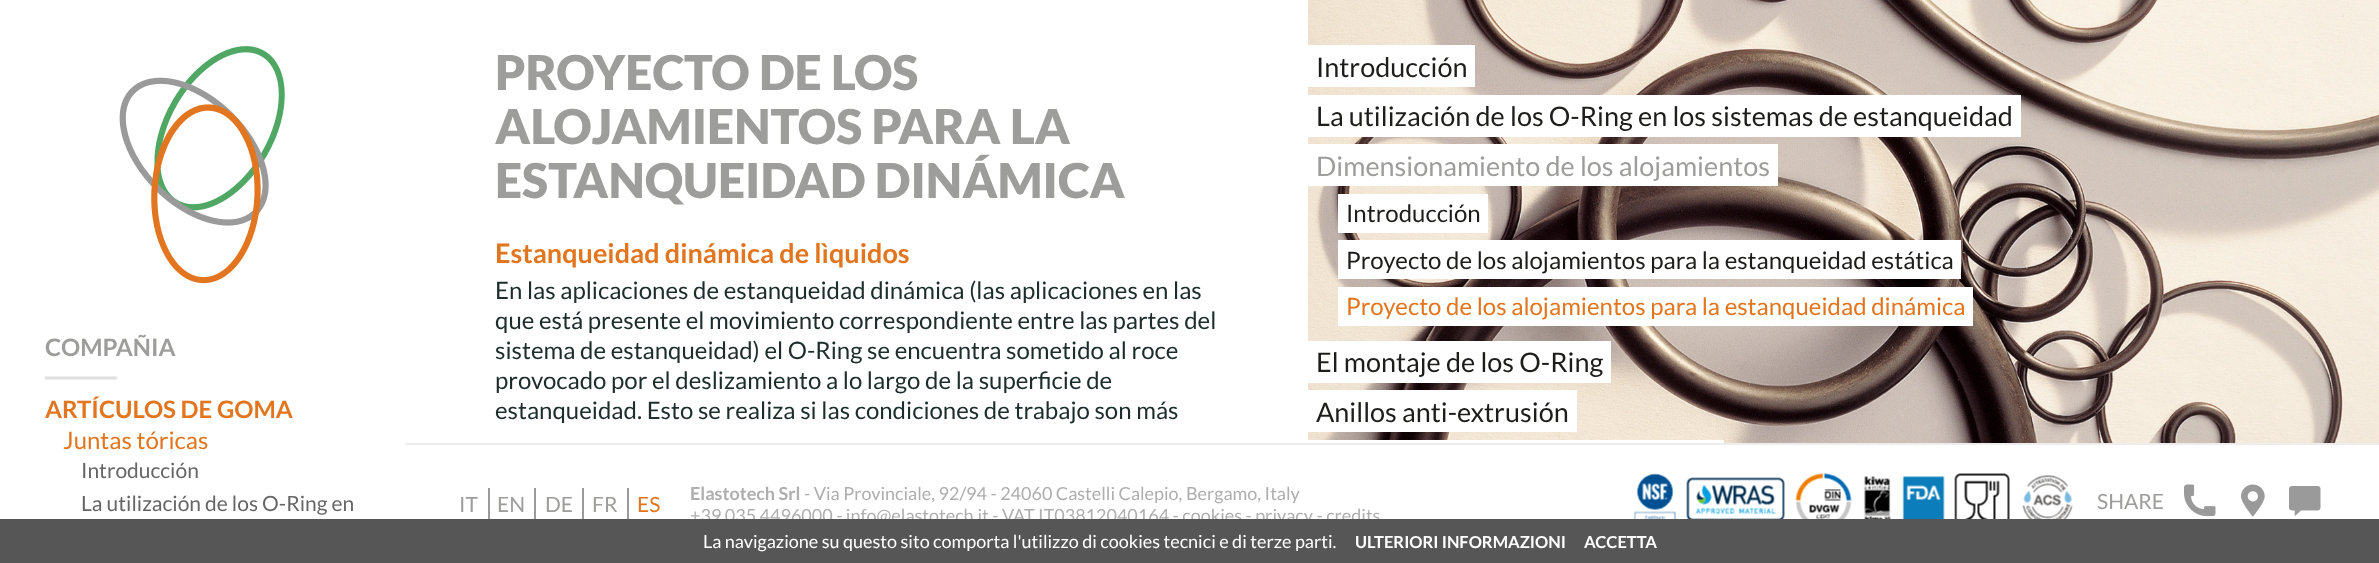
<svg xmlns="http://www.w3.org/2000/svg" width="2379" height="563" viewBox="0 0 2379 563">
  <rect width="100%" height="100%" fill="#ffffff"/>
  <image x="119" y="46" width="166" height="238" href="img1.png"/>
  <text x="45" y="356" font-family="Lato" font-size="24" font-weight="bold" fill="#9d9d9c">COMPAÑIA</text>
  <image x="45" y="376" width="73" height="4" href="img2.png"/>
  <text x="45" y="418" font-family="Lato" font-size="24" font-weight="bold" fill="#e2751f">ARTÍCULOS DE GOMA</text>
  <text x="63" y="449" font-family="Lato" font-size="24" fill="#e2751f">Juntas tóricas</text>
  <text x="81" y="478" font-family="Lato" font-size="21" fill="#666666">Introducción</text>
  <text x="81" y="511" font-family="Lato" font-size="21" fill="#666666">La utilización de los O-Ring en</text>
  <text x="495" y="90" font-family="Lato" font-size="48" font-weight="900" fill="#9d9d9c">PROYECTO DE LOS</text>
  <text x="495" y="144" font-family="Lato" font-size="48" font-weight="900" fill="#9d9d9c">ALOJAMIENTOS PARA LA</text>
  <text x="495" y="198" font-family="Lato" font-size="48" font-weight="900" fill="#9d9d9c">ESTANQUEIDAD DINÁMICA</text>
  <text x="495" y="263" font-family="Lato" font-size="27" font-weight="bold" fill="#e2751f">Estanqueidad dinámica de lìquidos</text>
  <text x="495" y="299" font-family="Lato" font-size="24" fill="#1d2d2b">En las aplicaciones de estanqueidad dinámica (las aplicaciones en las</text>
  <text x="495" y="329" font-family="Lato" font-size="24" fill="#1d2d2b">que está presente el movimiento correspondiente entre las partes del</text>
  <text x="495" y="359" font-family="Lato" font-size="24" fill="#1d2d2b">sistema de estanqueidad) el O-Ring se encuentra sometido al roce</text>
  <text x="495" y="389" font-family="Lato" font-size="24" fill="#1d2d2b">provocado por el deslizamiento a lo largo de la superficie de</text>
  <text x="495" y="419" font-family="Lato" font-size="24" fill="#1d2d2b">estanqueidad. Esto se realiza si las condiciones de trabajo son más</text>
  <image x="1308" y="0" width="1071" height="443" href="img3.png"/>
  <rect x="1308" y="45" width="167" height="42" fill="#ffffff"/>
  <text x="1316" y="77" font-family="Lato" font-size="27" fill="#1d1d1b">Introducción</text>
  <rect x="1308" y="95" width="713" height="42" fill="#ffffff"/>
  <text x="1316" y="126" font-family="Lato" font-size="27" fill="#1d1d1b">La utilización de los O-Ring en los sistemas de estanqueidad</text>
  <rect x="1308" y="144" width="470" height="42" fill="#ffffff"/>
  <text x="1316" y="176" font-family="Lato" font-size="27" fill="#9d9d9c">Dimensionamiento de los alojamientos</text>
  <rect x="1338" y="194" width="150" height="39" fill="#ffffff"/>
  <text x="1346" y="222" font-family="Lato" font-size="24" fill="#1d1d1b">Introducción</text>
  <rect x="1338" y="240" width="623" height="39" fill="#ffffff"/>
  <text x="1346" y="269" font-family="Lato" font-size="24" fill="#1d1d1b">Proyecto de los alojamientos para la estanqueidad estática</text>
  <rect x="1338" y="287" width="635" height="39" fill="#ffffff"/>
  <text x="1346" y="315" font-family="Lato" font-size="24" fill="#e2751f">Proyecto de los alojamientos para la estanqueidad dinámica</text>
  <rect x="1308" y="341" width="303" height="42" fill="#ffffff"/>
  <text x="1316" y="372" font-family="Lato" font-size="27" fill="#1d1d1b">El montaje de los O-Ring</text>
  <rect x="1308" y="390" width="269" height="42" fill="#ffffff"/>
  <text x="1316" y="422" font-family="Lato" font-size="27" fill="#1d1d1b">Anillos anti-extrusión</text>
  <rect x="1308" y="440" width="416" height="3" fill="#ffffff"/>
  <rect x="405" y="443" width="1974" height="2" fill="#ededed"/>
  <text x="459" y="512" font-family="Lato" font-size="21" fill="#9d9d9c">IT</text>
  <rect x="488" y="488" width="2" height="34" fill="#9b9a9b"/>
  <text x="497" y="512" font-family="Lato" font-size="21" fill="#9d9d9c">EN</text>
  <rect x="534" y="488" width="2" height="34" fill="#9b9a9b"/>
  <text x="545" y="512" font-family="Lato" font-size="21" fill="#9d9d9c">DE</text>
  <rect x="582" y="488" width="2" height="34" fill="#9b9a9b"/>
  <text x="592" y="512" font-family="Lato" font-size="21" fill="#9d9d9c">FR</text>
  <rect x="627" y="488" width="2" height="34" fill="#9b9a9b"/>
  <text x="637" y="512" font-family="Lato" font-size="21" fill="#e2751f">ES</text>
  <text x="690" y="500" font-family="Lato" font-size="18" font-weight="bold" fill="#aeaeae">Elastotech Srl</text>
  <text x="804" y="500" font-family="Lato" font-size="18" fill="#aeaeae">- Via Provinciale, 92/94 - 24060 Castelli Calepio, Bergamo, Italy</text>
  <text x="690" y="522" font-family="Lato" font-size="18" fill="#aeaeae">+39 035 4496000 - info@elastotech.it - VAT IT03812040164 - cookies - privacy - credits</text>
  <image x="1634" y="473" width="439" height="46" href="img4.png"/>
  <text x="2097" y="509" font-family="Lato" font-size="21" fill="#9d9d9c">SHARE</text>
  <image x="2184" y="484" width="32" height="33" href="img5.png"/>
  <image x="2241" y="484" width="24" height="33" href="img6.png"/>
  <image x="2289" y="486" width="32" height="30" href="img7.png"/>
  <rect x="0" y="519" width="2379" height="44" fill="#565656"/>
  <text x="703" y="548" font-family="Lato" font-size="18" fill="#ffffff">La navigazione su questo sito comporta l'utilizzo di cookies tecnici e di terze parti.</text>
  <text x="1355" y="548" font-family="Lato" font-size="16.5" font-weight="bold" fill="#ffffff">ULTERIORI INFORMAZIONI</text>
  <text x="1584" y="548" font-family="Lato" font-size="16.5" font-weight="bold" fill="#ffffff">ACCETTA</text>
</svg>
